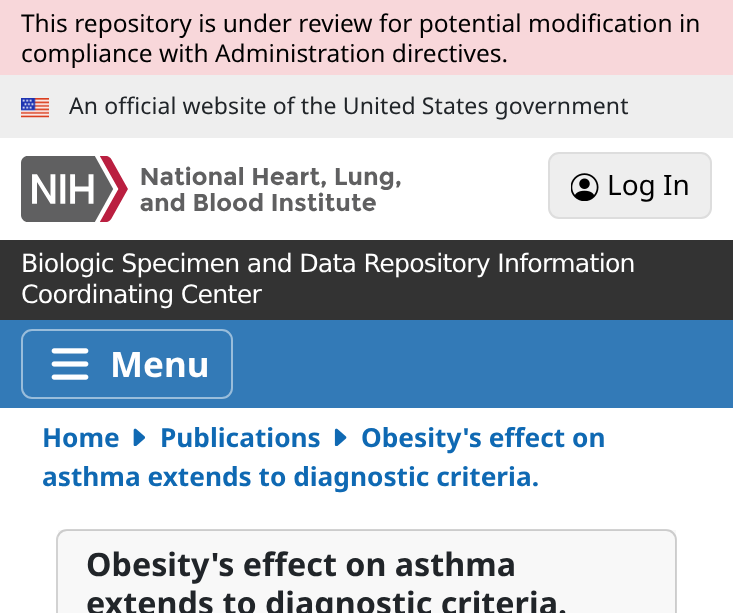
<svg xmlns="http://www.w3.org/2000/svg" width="733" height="613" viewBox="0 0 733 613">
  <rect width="100%" height="100%" fill="#ffffff"/>
  <rect x="0" y="0" width="733" height="75" fill="#f8d7da"/>
  <text x="21" y="32" font-family="Noto Sans" font-size="24.5" fill="#000000">This repository is under review for potential modification in</text>
  <text x="21" y="62" font-family="Noto Sans" font-size="24.5" fill="#000000">compliance with Administration directives.</text>
  <rect x="0" y="75" width="733" height="63" fill="#eeeeee"/>
  <image x="21" y="98" width="28" height="20" href="img1.png"/>
  <text x="69" y="114" font-family="Noto Sans" font-size="23" letter-spacing="0.1" fill="#212529">An official website of the United States government</text>
  <image x="21" y="156" width="380" height="66" href="img2.png"/>
  <rect x="549" y="153" width="162" height="65" rx="10" fill="#eeeeee" stroke="#dddddd" stroke-width="2"/>
  <image x="571" y="173" width="28" height="28" href="img3.png"/>
  <text x="607" y="195" font-family="Noto Sans" font-size="28" fill="#000000">Log In</text>
  <rect x="0" y="240" width="733" height="80" fill="#333333"/>
  <text x="21" y="272" font-family="DejaVu Sans" font-size="25.2" letter-spacing="-0.75" fill="#ffffff">Biologic Specimen and Data Repository Information</text>
  <text x="21" y="303" font-family="DejaVu Sans" font-size="25.2" letter-spacing="-0.75" fill="#ffffff">Coordinating Center</text>
  <rect x="0" y="320" width="733" height="88" fill="#337ab7"/>
  <rect x="22" y="330" width="210" height="68" rx="10" fill="none" stroke="#99bddb" stroke-width="2"/>
  <image x="51" y="348" width="38" height="32" href="img4.png"/>
  <text x="110" y="377" font-family="Noto Sans" font-size="35" font-weight="bold" fill="#ffffff">Menu</text>
  <text x="42" y="447" font-family="Noto Sans" font-size="26.25" font-weight="bold" fill="#0f69b3">Home</text>
  <image x="133" y="428" width="12" height="18" href="img5.png"/>
  <text x="160" y="447" font-family="Noto Sans" font-size="26.25" font-weight="bold" fill="#0f69b3">Publications</text>
  <image x="334" y="428" width="13" height="18" href="img6.png"/>
  <text x="361" y="447" font-family="Noto Sans" font-size="26.25" font-weight="bold" fill="#0f69b3">Obesity's effect on</text>
  <text x="42" y="486" font-family="Noto Sans" font-size="26.25" font-weight="bold" fill="#0f69b3">asthma extends to diagnostic criteria.</text>
  <rect x="57" y="530" width="619" height="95" rx="10" fill="none" stroke="#d2d2d2" stroke-width="2"/>
  <rect x="58" y="530" width="618" height="83" fill="#212529" fill-opacity="0.03"/>
  <text x="86" y="576" font-family="Noto Sans" font-size="32.25" font-weight="bold" fill="#212529">Obesity's effect on asthma</text>
  <text x="86" y="615" font-family="Noto Sans" font-size="32.25" font-weight="bold" fill="#212529">extends to diagnostic criteria.</text>
</svg>
